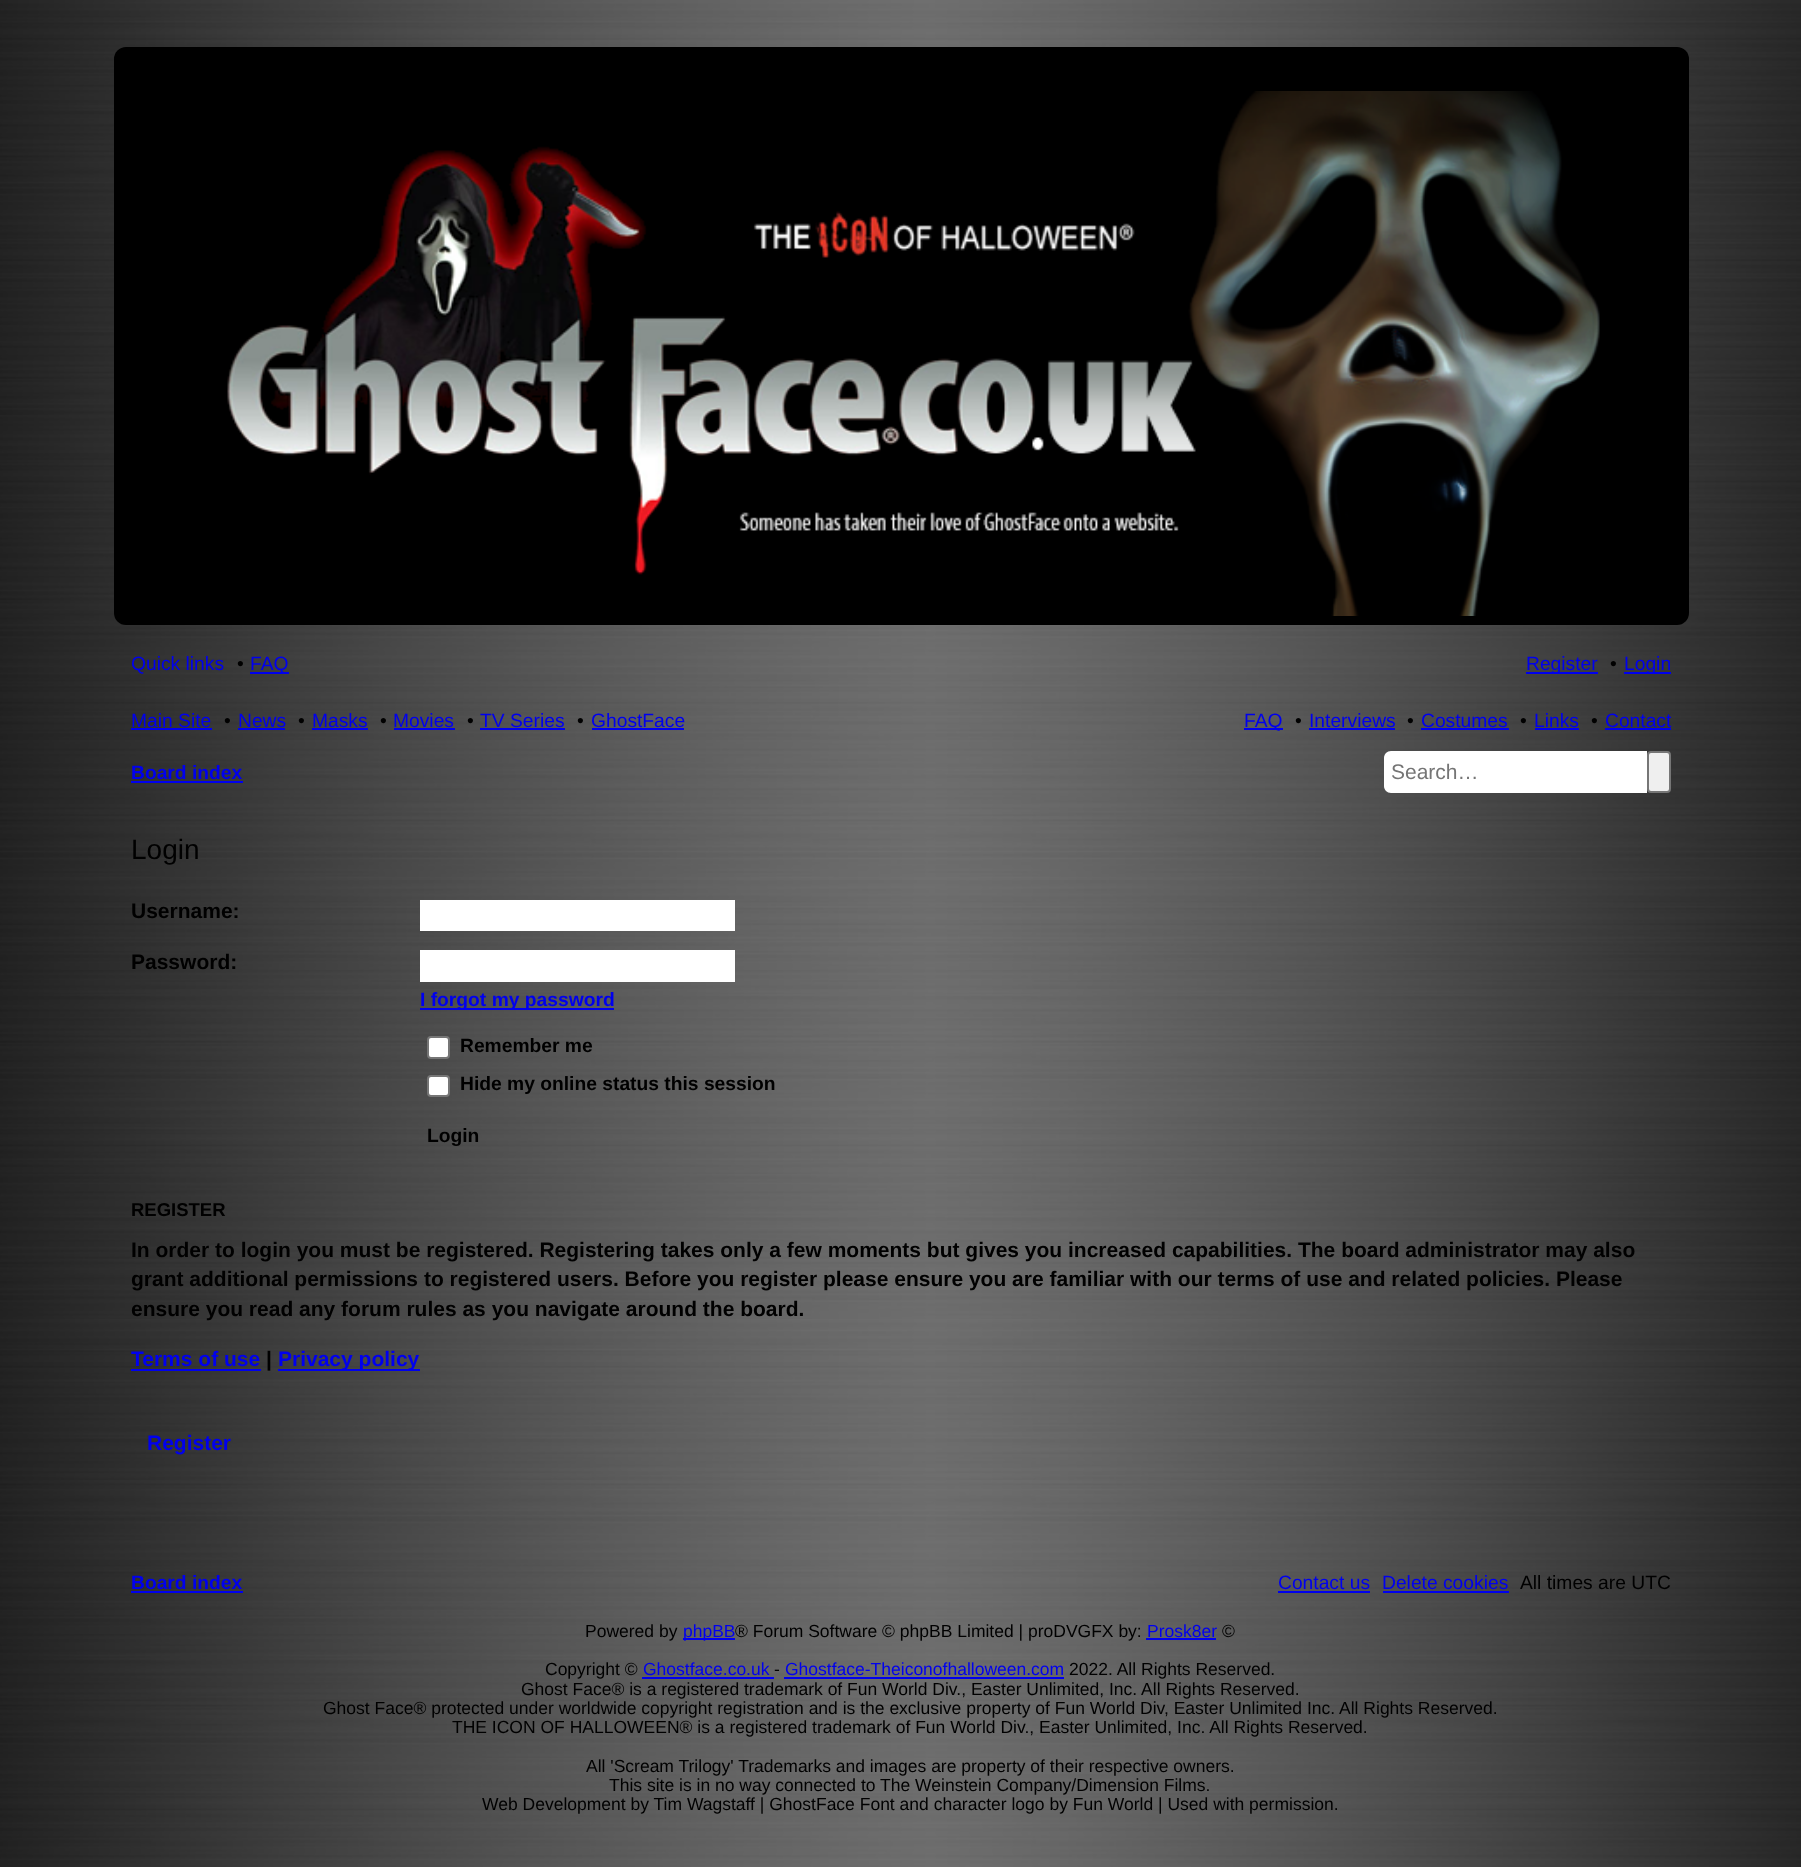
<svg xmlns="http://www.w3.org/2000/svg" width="1801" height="1867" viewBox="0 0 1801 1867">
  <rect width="100%" height="100%" fill="#ffffff"/>
  <image x="0" y="0" width="1801" height="1867" href="img1.png"/>
  <image x="0" y="1866" width="1801" height="1" href="img2.png"/>
  <rect x="114" y="47" width="1575" height="578" rx="12" fill="#000000"/>
  <image x="227" y="91" width="1373" height="525" href="img3.png"/>
  <text x="131" y="670" font-family="Liberation Sans" font-size="19.25" fill="#0000ee">Quick links</text>
  <text x="237" y="670" font-family="Liberation Sans" font-size="19.25" fill="#000000">•</text>
  <rect x="250" y="672" width="39" height="2" fill="#0000ee"/>
  <text x="250" y="670" font-family="Liberation Sans" font-size="19.25" fill="#0000ee">FAQ</text>
  <rect x="1526" y="672" width="72" height="2" fill="#0000ee"/>
  <text x="1526" y="670" font-family="Liberation Sans" font-size="19.25" fill="#0000ee">Register</text>
  <text x="1610" y="670" font-family="Liberation Sans" font-size="19.25" fill="#000000">•</text>
  <rect x="1624" y="672" width="47" height="2" fill="#0000ee"/>
  <text x="1624" y="670" font-family="Liberation Sans" font-size="19.25" fill="#0000ee">Login</text>
  <text x="131" y="727" font-family="Liberation Sans" font-size="19.25" fill="#0000ee">Main Site</text>
  <rect x="131" y="728" width="81" height="2" fill="#0000ee"/>
  <text x="224" y="727" font-family="Liberation Sans" font-size="19.25" fill="#000000">•</text>
  <text x="238" y="727" font-family="Liberation Sans" font-size="19.25" fill="#0000ee">News</text>
  <rect x="238" y="728" width="47" height="2" fill="#0000ee"/>
  <text x="298" y="727" font-family="Liberation Sans" font-size="19.25" fill="#000000">•</text>
  <text x="312" y="727" font-family="Liberation Sans" font-size="19.25" fill="#0000ee">Masks</text>
  <rect x="312" y="728" width="56" height="2" fill="#0000ee"/>
  <text x="380" y="727" font-family="Liberation Sans" font-size="19.25" fill="#000000">•</text>
  <text x="393" y="727" font-family="Liberation Sans" font-size="19.25" fill="#0000ee">Movies</text>
  <rect x="394" y="728" width="61" height="2" fill="#0000ee"/>
  <text x="467" y="727" font-family="Liberation Sans" font-size="19.25" fill="#000000">•</text>
  <text x="480" y="727" font-family="Liberation Sans" font-size="19.25" fill="#0000ee">TV Series</text>
  <rect x="480" y="728" width="85" height="2" fill="#0000ee"/>
  <text x="577" y="727" font-family="Liberation Sans" font-size="19.25" fill="#000000">•</text>
  <text x="591" y="727" font-family="Liberation Sans" font-size="19.25" fill="#0000ee">GhostFace</text>
  <rect x="592" y="728" width="92" height="2" fill="#0000ee"/>
  <rect x="1244" y="728" width="39" height="2" fill="#0000ee"/>
  <text x="1244" y="727" font-family="Liberation Sans" font-size="19.25" fill="#0000ee">FAQ</text>
  <text x="1295" y="727" font-family="Liberation Sans" font-size="19.25" fill="#000000">•</text>
  <text x="1309" y="727" font-family="Liberation Sans" font-size="19.25" fill="#0000ee">Interviews</text>
  <rect x="1309" y="728" width="86" height="2" fill="#0000ee"/>
  <text x="1407" y="727" font-family="Liberation Sans" font-size="19.25" fill="#000000">•</text>
  <text x="1421" y="727" font-family="Liberation Sans" font-size="19.25" fill="#0000ee">Costumes</text>
  <rect x="1421" y="728" width="88" height="2" fill="#0000ee"/>
  <text x="1520" y="727" font-family="Liberation Sans" font-size="19.25" fill="#000000">•</text>
  <text x="1534" y="727" font-family="Liberation Sans" font-size="19.25" fill="#0000ee">Links</text>
  <rect x="1535" y="728" width="44" height="2" fill="#0000ee"/>
  <text x="1591" y="727" font-family="Liberation Sans" font-size="19.25" fill="#000000">•</text>
  <text x="1605" y="727" font-family="Liberation Sans" font-size="19.25" fill="#0000ee">Contact</text>
  <rect x="1605" y="728" width="66" height="2" fill="#0000ee"/>
  <text x="131" y="779" font-family="Liberation Sans" font-size="19.25" font-weight="bold" fill="#0000ee">Board index</text>
  <rect x="131" y="781" width="112" height="2" fill="#0000ee"/>
  <path d="M1391 751H1647V793H1391C1387 793 1384 790 1384 786V758C1384 754 1387 751 1391 751Z" fill="#ffffff"/>
  <text x="1391" y="779" font-family="Liberation Sans" font-size="21" fill="#757575">Search…</text>
  <rect x="1648" y="752" width="22" height="40" rx="3" fill="#efefef" stroke="#767676" stroke-width="2"/>
  <text x="131" y="859" font-family="Liberation Sans" font-size="28" fill="#000000">Login</text>
  <text x="131" y="918" font-family="Liberation Sans" font-size="21" font-weight="bold" fill="#000000">Username:</text>
  <rect x="420" y="900" width="315" height="31" fill="#ffffff"/>
  <text x="131" y="969" font-family="Liberation Sans" font-size="21" font-weight="bold" fill="#000000">Password:</text>
  <rect x="420" y="950" width="315" height="32" fill="#ffffff"/>
  <rect x="420" y="1008" width="194" height="2" fill="#0000ee"/>
  <text x="420" y="1006" font-family="Liberation Sans" font-size="19.25" font-weight="bold" fill="#0000ee">I forgot my password</text>
  <rect x="428" y="1037" width="21" height="21" rx="3" fill="#ffffff" stroke="#767676" stroke-width="2"/>
  <text x="460" y="1052" font-family="Liberation Sans" font-size="19.25" font-weight="bold" fill="#000000">Remember me</text>
  <rect x="428" y="1076" width="21" height="20" rx="3" fill="#ffffff" stroke="#767676" stroke-width="2"/>
  <text x="460" y="1090" font-family="Liberation Sans" font-size="19.25" font-weight="bold" fill="#000000">Hide my online status this session</text>
  <text x="427" y="1142" font-family="Liberation Sans" font-size="19.25" font-weight="bold" fill="#000000">Login</text>
  <text x="131" y="1216" font-family="Liberation Sans" font-size="18.5" font-weight="bold" fill="#000000">REGISTER</text>
  <text x="131" y="1257" font-family="Liberation Sans" font-size="21" font-weight="bold" fill="#000000">In order to login you must be registered. Registering takes only a few moments but gives you increased capabilities. The board administrator may also</text>
  <text x="131" y="1286" font-family="Liberation Sans" font-size="21" font-weight="bold" fill="#000000">grant additional permissions to registered users. Before you register please ensure you are familiar with our terms of use and related policies. Please</text>
  <text x="131" y="1316" font-family="Liberation Sans" font-size="21" font-weight="bold" fill="#000000">ensure you read any forum rules as you navigate around the board.</text>
  <text x="131" y="1366" font-family="Liberation Sans" font-size="21" font-weight="bold" fill="#0000ee">Terms of use</text>
  <rect x="131" y="1369" width="130" height="2" fill="#0000ee"/>
  <text x="266" y="1366" font-family="Liberation Sans" font-size="21" font-weight="bold" fill="#000000">|</text>
  <rect x="278" y="1369" width="142" height="2" fill="#0000ee"/>
  <text x="278" y="1366" font-family="Liberation Sans" font-size="21" font-weight="bold" fill="#0000ee">Privacy policy</text>
  <text x="147" y="1450" font-family="Liberation Sans" font-size="21" font-weight="bold" fill="#0000ee">Register</text>
  <text x="131" y="1589" font-family="Liberation Sans" font-size="19.25" font-weight="bold" fill="#0000ee">Board index</text>
  <rect x="131" y="1591" width="112" height="2" fill="#0000ee"/>
  <text x="1278" y="1589" font-family="Liberation Sans" font-size="19.25" fill="#0000ee">Contact us</text>
  <rect x="1278" y="1591" width="92" height="2" fill="#0000ee"/>
  <text x="1382" y="1589" font-family="Liberation Sans" font-size="19.25" fill="#0000ee">Delete cookies</text>
  <rect x="1383" y="1591" width="126" height="2" fill="#0000ee"/>
  <text x="1520" y="1589" font-family="Liberation Sans" font-size="19.25" fill="#000000">All times are UTC</text>
  <text x="585" y="1637" font-family="Liberation Sans" font-size="17.5" fill="#000000">Powered by</text>
  <rect x="683" y="1638" width="52" height="2" fill="#0000ee"/>
  <text x="683" y="1637" font-family="Liberation Sans" font-size="17.5" fill="#0000ee">phpBB</text>
  <text x="735" y="1637" font-family="Liberation Sans" font-size="17.5" fill="#000000">® Forum Software © phpBB Limited | proDVGFX by:</text>
  <text x="1147" y="1637" font-family="Liberation Sans" font-size="17.5" fill="#0000ee">Prosk8er</text>
  <rect x="1146" y="1638" width="70" height="2" fill="#0000ee"/>
  <text x="1222" y="1637" font-family="Liberation Sans" font-size="17.5" fill="#000000">©</text>
  <text x="545" y="1675" font-family="Liberation Sans" font-size="17.5" fill="#000000">Copyright ©</text>
  <text x="643" y="1675" font-family="Liberation Sans" font-size="17.5" fill="#0000ee">Ghostface.co.uk</text>
  <rect x="642" y="1677" width="132" height="2" fill="#0000ee"/>
  <text x="774" y="1675" font-family="Liberation Sans" font-size="17.5" fill="#000000">-</text>
  <text x="785" y="1675" font-family="Liberation Sans" font-size="17.5" fill="#0000ee">Ghostface-Theiconofhalloween.com</text>
  <rect x="784" y="1677" width="280" height="2" fill="#0000ee"/>
  <text x="1069" y="1675" font-family="Liberation Sans" font-size="17.5" fill="#000000">2022. All Rights Reserved.</text>
  <text x="521" y="1695" font-family="Liberation Sans" font-size="17.5" fill="#000000">Ghost Face® is a registered trademark of Fun World Div., Easter Unlimited, Inc. All Rights Reserved.</text>
  <text x="323" y="1714" font-family="Liberation Sans" font-size="17.5" fill="#000000">Ghost Face® protected under worldwide copyright registration and is the exclusive property of Fun World Div, Easter Unlimited Inc. All Rights Reserved.</text>
  <text x="452" y="1733" font-family="Liberation Sans" font-size="17.5" fill="#000000">THE ICON OF HALLOWEEN® is a registered trademark of Fun World Div., Easter Unlimited, Inc. All Rights Reserved.</text>
  <text x="586" y="1772" font-family="Liberation Sans" font-size="17.5" fill="#000000">All 'Scream Trilogy' Trademarks and images are property of their respective owners.</text>
  <text x="609" y="1791" font-family="Liberation Sans" font-size="17.5" fill="#000000">This site is in no way connected to The Weinstein Company/Dimension Films.</text>
  <text x="482" y="1810" font-family="Liberation Sans" font-size="17.5" fill="#000000">Web Development by Tim Wagstaff | GhostFace Font and character logo by Fun World | Used with permission.</text>
</svg>
